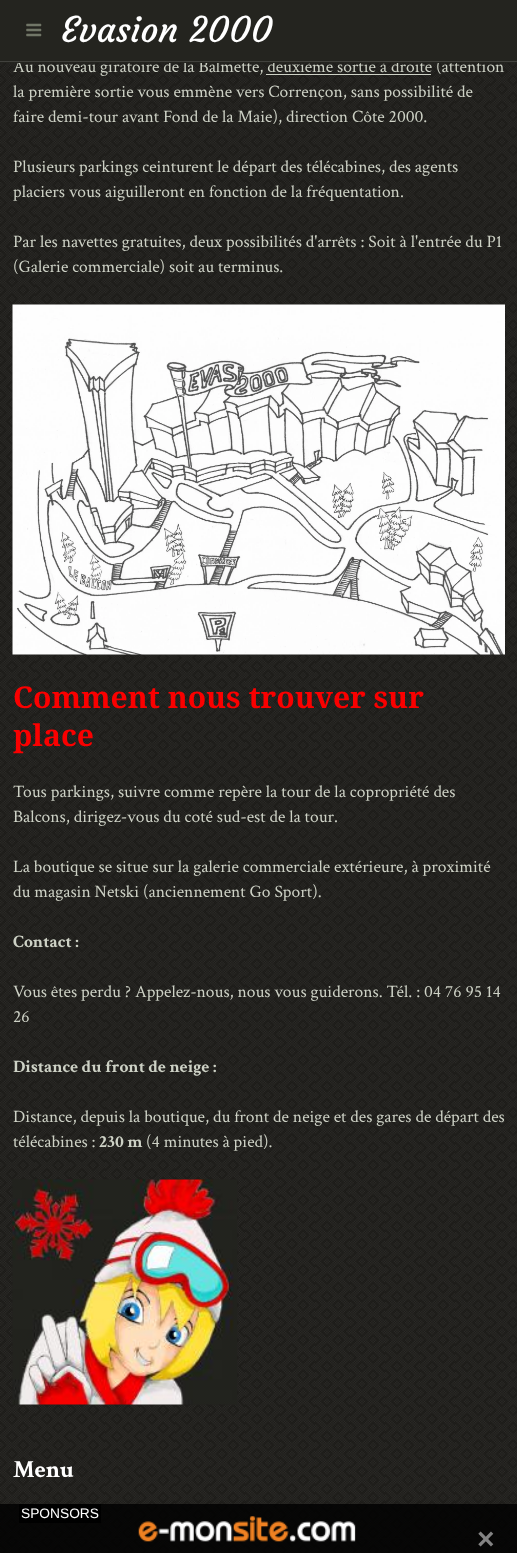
<svg xmlns="http://www.w3.org/2000/svg" width="517" height="1553" viewBox="0 0 517 1553">
  <rect width="100%" height="100%" fill="#181714"/>
  <image x="0" y="63" width="517" height="1490" href="img1.png"/>
  <text x="13" y="72" font-family="Crimson Text" font-size="17.5" fill="#cdd1c5">Au nouveau giratoire de la Balmette, deuxième sortie à droite (attention</text>
  <rect x="0" y="0" width="517" height="63" fill="#24241f"/>
  <rect x="0" y="61" width="517" height="1" fill="#41413d"/>
  <image x="26" y="23" width="16" height="14" href="img2.png"/>
  <text x="61" y="42" font-family="Courgette" font-size="35" fill="#ffffff">Evasion 2000</text>
  <rect x="266" y="74" width="165" height="1" fill="#cdd1c5"/>
  <text x="13" y="97" font-family="Crimson Text" font-size="17.5" fill="#cdd1c5">la première sortie vous emmène vers Corrençon, sans possibilité de</text>
  <text x="13" y="122" font-family="Crimson Text" font-size="17.5" fill="#cdd1c5">faire demi-tour avant Fond de la Maie), direction Côte 2000.</text>
  <text x="13" y="172" font-family="Crimson Text" font-size="17.5" fill="#cdd1c5">Plusieurs parkings ceinturent le départ des télécabines, des agents</text>
  <text x="13" y="197" font-family="Crimson Text" font-size="17.5" fill="#cdd1c5">placiers vous aiguilleront en fonction de la fréquentation.</text>
  <text x="13" y="247" font-family="Crimson Text" font-size="17.5" fill="#cdd1c5">Par les navettes gratuites, deux possibilités d'arrêts : Soit à l'entrée du P1</text>
  <text x="13" y="272" font-family="Crimson Text" font-size="17.5" fill="#cdd1c5">(Galerie commerciale) soit au terminus.</text>
  <image x="12" y="304" width="493" height="351" href="img3.png"/>
  <text x="13" y="708" font-family="Droid Serif" font-size="30" font-weight="bold" fill="#fa0000">Comment nous trouver sur</text>
  <text x="13" y="746" font-family="Droid Serif" font-size="30" font-weight="bold" fill="#fa0000">place</text>
  <text x="13" y="797" font-family="Crimson Text" font-size="17.5" fill="#cdd1c5">Tous parkings, suivre comme repère la tour de la copropriété des</text>
  <text x="13" y="822" font-family="Crimson Text" font-size="17.5" fill="#cdd1c5">Balcons, dirigez-vous du coté sud-est de la tour.</text>
  <text x="13" y="872" font-family="Crimson Text" font-size="17.5" fill="#cdd1c5">La boutique se situe sur la galerie commerciale extérieure, à proximité</text>
  <text x="13" y="897" font-family="Crimson Text" font-size="17.5" fill="#cdd1c5">du magasin Netski (anciennement Go Sport).</text>
  <text x="13" y="947" font-family="Crimson Text" font-size="17.5" font-weight="bold" fill="#cdd1c5">Contact :</text>
  <text x="13" y="997" font-family="Crimson Text" font-size="17.5" fill="#cdd1c5">Vous êtes perdu ? Appelez-nous, nous vous guiderons. Tél. : 04 76 95 14</text>
  <text x="13" y="1022" font-family="Crimson Text" font-size="17.5" fill="#cdd1c5">26</text>
  <text x="13" y="1072" font-family="Crimson Text" font-size="17.5" font-weight="bold" fill="#cdd1c5">Distance du front de neige :</text>
  <text x="13" y="1122" font-family="Crimson Text" font-size="17.5" fill="#cdd1c5">Distance, depuis la boutique, du front de neige et des gares de départ des</text>
  <text x="13" y="1147" font-family="Crimson Text" font-size="17.5" fill="#cdd1c5">télécabines :</text>
  <text x="99" y="1147" font-family="Crimson Text" font-size="17.5" font-weight="bold" fill="#cdd1c5">230 m</text>
  <text x="146" y="1147" font-family="Crimson Text" font-size="17.5" fill="#cdd1c5">(4 minutes à pied).</text>
  <image x="12" y="1179" width="225" height="226" href="img4.png"/>
  <text x="13" y="1477" font-family="Crimson Text" font-size="24.5" font-weight="bold" fill="#ffffff">Menu</text>
  <rect x="13" y="1538" width="492" height="1" fill="#25231f"/>
  <rect x="0" y="1504" width="517" height="49" fill="#000000" fill-opacity="0.8"/>
  <rect x="19" y="1504" width="82" height="19" fill="#000000"/>
  <text x="21" y="1518" font-family="Liberation Sans" font-size="13.75" fill="#ffffff">SPONSORS</text>
  <image x="138" y="1516" width="218" height="26" href="img5.png"/>
  <text x="477" y="1549" font-family="Liberation Sans" font-size="30" font-weight="bold" fill="#838383">×</text>
</svg>
